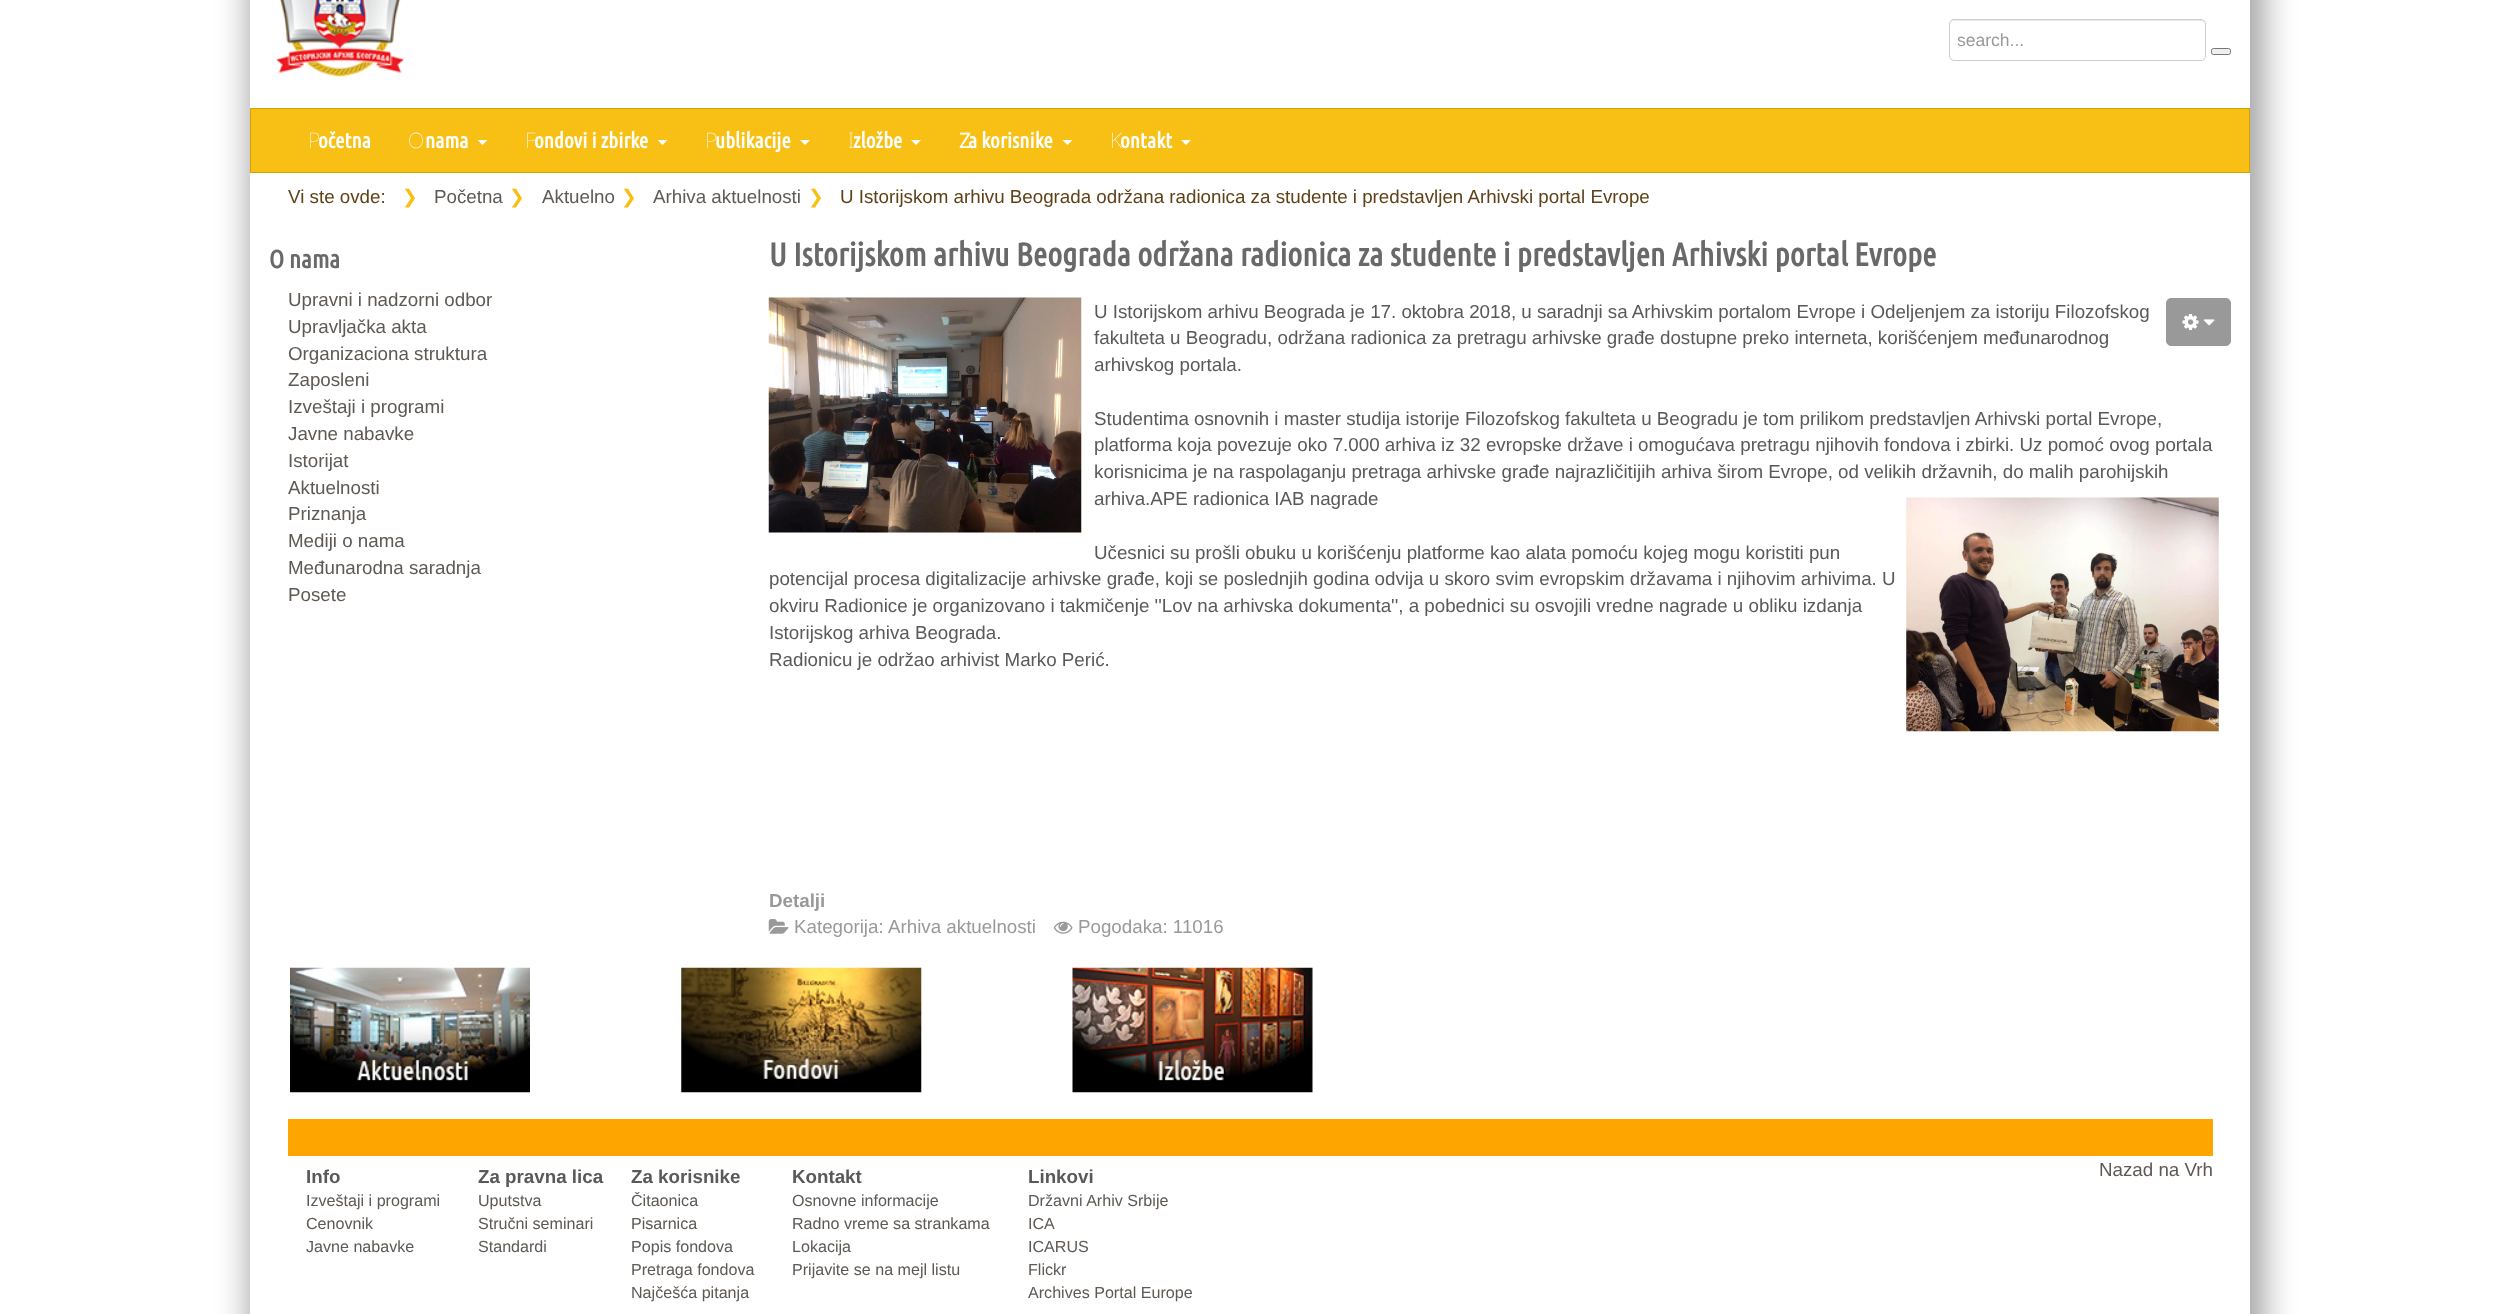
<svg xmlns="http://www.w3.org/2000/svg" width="2499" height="1314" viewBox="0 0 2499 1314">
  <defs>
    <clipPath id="clip1"><path d="M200 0H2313V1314H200ZM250-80H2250V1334H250Z" clip-rule="evenodd"/></clipPath>
    <filter id="blur1" x="-50%" y="-200%" width="200%" height="500%"><feGaussianBlur stdDeviation="16"/></filter>
  </defs>
  <rect width="100%" height="100%" fill="#ffffff"/>
  <g clip-path="url(#clip1)">
    <rect x="249" y="-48" width="2015" height="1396" fill="#000000" fill-opacity="0.36" filter="url(#blur1)"/>
  </g>
  <image x="276" y="0" width="128" height="77" href="img1.png"/>
  <path d="M1954 21H2201C2203 21 2205 23 2205 25V24C2205 22 2203 20 2201 20H1954C1952 20 1950 22 1950 24V25C1950 23 1952 21 1954 21Z" fill="#ececec"/>
  <rect x="1949.5" y="19.5" width="256" height="41" rx="4.5" fill="none" stroke="#cccccc"/>
  <text x="1957" y="46" font-family="Liberation Sans" font-size="17.5" fill="#999999">search...</text>
  <rect x="2211.5" y="48.5" width="19" height="6" rx="2" fill="#efefef" stroke="#767676"/>
  <rect x="250.5" y="108.5" width="1999" height="64" fill="#f8c014" stroke="#d3a106"/>
  <text x="308" y="148" font-family="Noto Sans" font-size="21.25" font-weight="100" fill="#ffffff">P</text>
  <text x="318" y="148" font-family="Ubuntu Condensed" font-size="21.25" font-weight="bold" fill="#ffffff">očetna</text>
  <text x="408" y="148" font-family="Noto Sans" font-size="21.25" font-weight="100" fill="#ffffff">O</text>
  <text x="425" y="148" font-family="Ubuntu Condensed" font-size="21.25" font-weight="bold" fill="#ffffff">nama</text>
  <path d="M477.5 140H487.5L482.5 145Z" fill="#ffffff"/>
  <text x="525" y="148" font-family="Noto Sans" font-size="21.25" font-weight="100" fill="#ffffff">F</text>
  <text x="534" y="148" font-family="Ubuntu Condensed" font-size="21.25" font-weight="bold" fill="#ffffff">ondovi i zbirke</text>
  <path d="M657.5 140H667.5L662.5 145Z" fill="#ffffff"/>
  <text x="705" y="148" font-family="Noto Sans" font-size="21.25" font-weight="100" fill="#ffffff">P</text>
  <text x="715" y="148" font-family="Ubuntu Condensed" font-size="21.25" font-weight="bold" fill="#ffffff">ublikacije</text>
  <path d="M800 140H810L805 145Z" fill="#ffffff"/>
  <text x="848" y="148" font-family="Noto Sans" font-size="21.25" font-weight="100" fill="#ffffff">I</text>
  <text x="853" y="148" font-family="Ubuntu Condensed" font-size="21.25" font-weight="bold" fill="#ffffff">zložbe</text>
  <path d="M911 140H921L916 145Z" fill="#ffffff"/>
  <text x="959" y="148" font-family="Noto Sans" font-size="21.25" fill="#ffffff">Z</text>
  <text x="968" y="148" font-family="Ubuntu Condensed" font-size="21.25" font-weight="bold" fill="#ffffff">a korisnike</text>
  <path d="M1062.5 140H1072.5L1067.5 145Z" fill="#ffffff"/>
  <text x="1110" y="148" font-family="Noto Sans" font-size="21.25" font-weight="100" fill="#ffffff">K</text>
  <text x="1120" y="148" font-family="Ubuntu Condensed" font-size="21.25" font-weight="bold" fill="#ffffff">ontakt</text>
  <path d="M1181 140H1191L1186 145Z" fill="#ffffff"/>
  <text x="288" y="203" font-family="Liberation Sans" font-size="18.75" fill="#5f4118">Vi ste ovde:</text>
  <text x="402" y="203" font-family="DejaVu Sans" font-size="18.75" fill="#f8c014">❯</text>
  <text x="434" y="203" font-family="Liberation Sans" font-size="18.75" fill="#5e5954">Početna</text>
  <text x="509" y="203" font-family="DejaVu Sans" font-size="18.75" fill="#f8c014">❯</text>
  <text x="542" y="203" font-family="Liberation Sans" font-size="18.75" fill="#5e5954">Aktuelno</text>
  <text x="621" y="203" font-family="DejaVu Sans" font-size="18.75" fill="#f8c014">❯</text>
  <text x="653" y="203" font-family="Liberation Sans" font-size="18.75" fill="#5e5954">Arhiva aktuelnosti</text>
  <text x="808" y="203" font-family="DejaVu Sans" font-size="18.75" fill="#f8c014">❯</text>
  <text x="840" y="203" font-family="Liberation Sans" font-size="18.75" fill="#5f4118">U Istorijskom arhivu Beograda održana radionica za studente i predstavljen Arhivski portal Evrope</text>
  <text x="269" y="268" font-family="Ubuntu Condensed" font-size="25" font-weight="bold" fill="#696969">O nama</text>
  <text x="288" y="306" font-family="Liberation Sans" font-size="18.75" fill="#5e5954">Upravni i nadzorni odbor</text>
  <text x="288" y="333" font-family="Liberation Sans" font-size="18.75" fill="#5e5954">Upravljačka akta</text>
  <text x="288" y="360" font-family="Liberation Sans" font-size="18.75" fill="#5e5954">Organizaciona struktura</text>
  <text x="288" y="386" font-family="Liberation Sans" font-size="18.75" fill="#5e5954">Zaposleni</text>
  <text x="288" y="413" font-family="Liberation Sans" font-size="18.75" fill="#5e5954">Izveštaji i programi</text>
  <text x="288" y="440" font-family="Liberation Sans" font-size="18.75" fill="#5e5954">Javne nabavke</text>
  <text x="288" y="467" font-family="Liberation Sans" font-size="18.75" fill="#5e5954">Istorijat</text>
  <text x="288" y="494" font-family="Liberation Sans" font-size="18.75" fill="#5e5954">Aktuelnosti</text>
  <text x="288" y="520" font-family="Liberation Sans" font-size="18.75" fill="#5e5954">Priznanja</text>
  <text x="288" y="547" font-family="Liberation Sans" font-size="18.75" fill="#5e5954">Mediji o nama</text>
  <text x="288" y="574" font-family="Liberation Sans" font-size="18.75" fill="#5e5954">Međunarodna saradnja</text>
  <text x="288" y="601" font-family="Liberation Sans" font-size="18.75" fill="#5e5954">Posete</text>
  <text x="769" y="266" font-family="Ubuntu Condensed" font-size="32.5" font-weight="bold" fill="#696969">U Istorijskom arhivu Beograda održana radionica za studente i predstavljen Arhivski portal Evrope</text>
  <rect x="2166.5" y="298.5" width="64" height="47" rx="4.5" fill="#999999" stroke="#999999"/>
  <image x="2182" y="314" width="17" height="17" href="img2.png"/>
  <image x="2203" y="319" width="12" height="7" href="img3.png"/>
  <image x="768" y="297" width="314" height="236" href="img4.png"/>
  <text x="1094" y="318" font-family="Liberation Sans" font-size="18.75" fill="#58595b">U Istorijskom arhivu Beograda je 17. oktobra 2018, u saradnji sa Arhivskim portalom Evrope i Odeljenjem za istoriju Filozofskog</text>
  <text x="1094" y="344" font-family="Liberation Sans" font-size="18.75" fill="#58595b">fakulteta u Beogradu, održana radionica za pretragu arhivske građe dostupne preko interneta, korišćenjem međunarodnog</text>
  <text x="1094" y="371" font-family="Liberation Sans" font-size="18.75" fill="#58595b">arhivskog portala.</text>
  <text x="1094" y="425" font-family="Liberation Sans" font-size="18.75" fill="#58595b">Studentima osnovnih i master studija istorije Filozofskog fakulteta u Beogradu je tom prilikom predstavljen Arhivski portal Evrope,</text>
  <text x="1094" y="451" font-family="Liberation Sans" font-size="18.75" fill="#58595b">platforma koja povezuje oko 7.000 arhiva iz 32 evropske države i omogućava pretragu njihovih fondova i zbirki. Uz pomoć ovog portala</text>
  <text x="1094" y="478" font-family="Liberation Sans" font-size="18.75" fill="#58595b">korisnicima je na raspolaganju pretraga arhivske građe najrazličitijih arhiva širom Evrope, od velikih državnih, do malih parohijskih</text>
  <text x="1094" y="505" font-family="Liberation Sans" font-size="18.75" fill="#58595b">arhiva.APE radionica IAB nagrade</text>
  <image x="1906" y="497" width="313" height="235" href="img5.png"/>
  <text x="1094" y="559" font-family="Liberation Sans" font-size="18.75" fill="#58595b">Učesnici su prošli obuku u korišćenju platforme kao alata pomoću kojeg mogu koristiti pun</text>
  <text x="769" y="585" font-family="Liberation Sans" font-size="18.75" fill="#58595b">potencijal procesa digitalizacije arhivske građe, koji se poslednjih godina odvija u skoro svim evropskim državama i njihovim arhivima. U</text>
  <text x="769" y="612" font-family="Liberation Sans" font-size="18.75" fill="#58595b">okviru Radionice je organizovano i takmičenje ''Lov na arhivska dokumenta'', a pobednici su osvojili vredne nagrade u obliku izdanja</text>
  <text x="769" y="639" font-family="Liberation Sans" font-size="18.75" fill="#58595b">Istorijskog arhiva Beograda.</text>
  <text x="769" y="666" font-family="Liberation Sans" font-size="18.75" fill="#58595b">Radionicu je održao arhivist Marko Perić.</text>
  <text x="769" y="907" font-family="Liberation Sans" font-size="18.75" font-weight="bold" fill="#999999">Detalji</text>
  <image x="768" y="919" width="21" height="15" href="img6.png"/>
  <text x="794" y="933" font-family="Liberation Sans" font-size="18.75" fill="#999999">Kategorija:</text>
  <text x="888" y="933" font-family="Liberation Sans" font-size="18.75" fill="#999999">Arhiva aktuelnosti</text>
  <image x="1053" y="921" width="20" height="13" href="img7.png"/>
  <text x="1078" y="933" font-family="Liberation Sans" font-size="18.75" fill="#999999">Pogodaka: 11016</text>
  <image x="290" y="967" width="240" height="126" href="img8.png"/>
  <image x="681" y="967" width="241" height="126" href="img9.png"/>
  <image x="1072" y="967" width="241" height="126" href="img10.png"/>
  <rect x="288" y="1119" width="1925" height="37" fill="#ffa500"/>
  <text x="306" y="1183" font-family="Liberation Sans" font-size="18.75" font-weight="bold" fill="#58595b">Info</text>
  <text x="306" y="1206" font-family="Liberation Sans" font-size="16.1" fill="#5e5954">Izveštaji i programi</text>
  <text x="306" y="1229" font-family="Liberation Sans" font-size="16.1" fill="#5e5954">Cenovnik</text>
  <text x="306" y="1252" font-family="Liberation Sans" font-size="16.1" fill="#5e5954">Javne nabavke</text>
  <text x="478" y="1183" font-family="Liberation Sans" font-size="18.75" font-weight="bold" fill="#58595b">Za pravna lica</text>
  <text x="478" y="1206" font-family="Liberation Sans" font-size="16.1" fill="#5e5954">Uputstva</text>
  <text x="478" y="1229" font-family="Liberation Sans" font-size="16.1" fill="#5e5954">Stručni seminari</text>
  <text x="478" y="1252" font-family="Liberation Sans" font-size="16.1" fill="#5e5954">Standardi</text>
  <text x="631" y="1183" font-family="Liberation Sans" font-size="18.75" font-weight="bold" fill="#58595b">Za korisnike</text>
  <text x="631" y="1206" font-family="Liberation Sans" font-size="16.1" fill="#5e5954">Čitaonica</text>
  <text x="631" y="1229" font-family="Liberation Sans" font-size="16.1" fill="#5e5954">Pisarnica</text>
  <text x="631" y="1252" font-family="Liberation Sans" font-size="16.1" fill="#5e5954">Popis fondova</text>
  <text x="631" y="1275" font-family="Liberation Sans" font-size="16.1" fill="#5e5954">Pretraga fondova</text>
  <text x="631" y="1298" font-family="Liberation Sans" font-size="16.1" fill="#5e5954">Najčešća pitanja</text>
  <text x="792" y="1183" font-family="Liberation Sans" font-size="18.75" font-weight="bold" fill="#58595b">Kontakt</text>
  <text x="792" y="1206" font-family="Liberation Sans" font-size="16.1" fill="#5e5954">Osnovne informacije</text>
  <text x="792" y="1229" font-family="Liberation Sans" font-size="16.1" fill="#5e5954">Radno vreme sa strankama</text>
  <text x="792" y="1252" font-family="Liberation Sans" font-size="16.1" fill="#5e5954">Lokacija</text>
  <text x="792" y="1275" font-family="Liberation Sans" font-size="16.1" fill="#5e5954">Prijavite se na mejl listu</text>
  <text x="1028" y="1183" font-family="Liberation Sans" font-size="18.75" font-weight="bold" fill="#58595b">Linkovi</text>
  <text x="1028" y="1206" font-family="Liberation Sans" font-size="16.1" fill="#5e5954">Državni Arhiv Srbije</text>
  <text x="1028" y="1229" font-family="Liberation Sans" font-size="16.1" fill="#5e5954">ICA</text>
  <text x="1028" y="1252" font-family="Liberation Sans" font-size="16.1" fill="#5e5954">ICARUS</text>
  <text x="1028" y="1275" font-family="Liberation Sans" font-size="16.1" fill="#5e5954">Flickr</text>
  <text x="1028" y="1298" font-family="Liberation Sans" font-size="16.1" fill="#5e5954">Archives Portal Europe</text>
  <text x="2099" y="1176" font-family="Liberation Sans" font-size="18.75" fill="#5e5954">Nazad na Vrh</text>
</svg>
